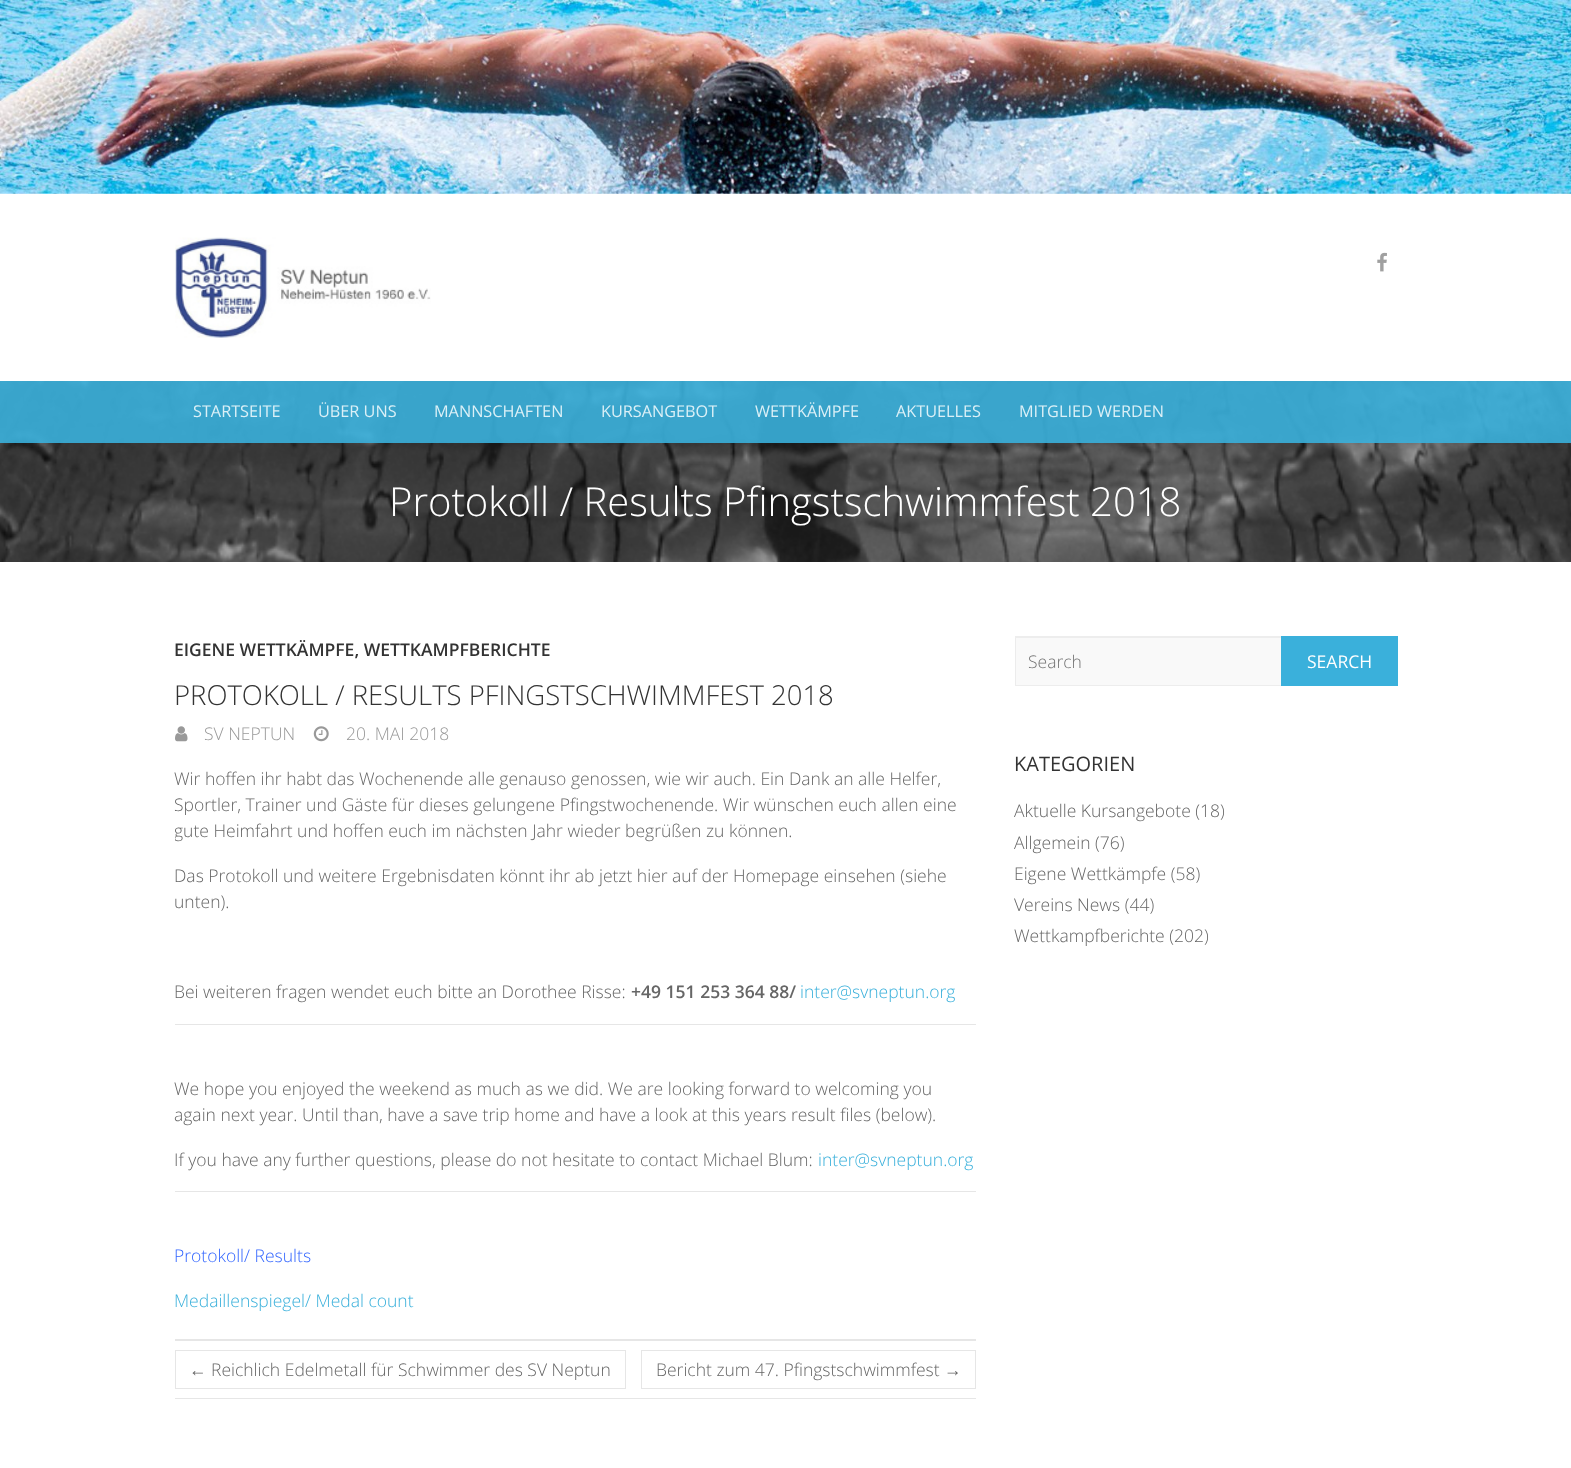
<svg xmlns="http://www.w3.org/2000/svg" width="1571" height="1468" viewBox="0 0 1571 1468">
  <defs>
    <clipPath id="clip1"><rect x="175" y="765" width="801" height="568"/></clipPath>
  </defs>
  <rect width="100%" height="100%" fill="#ffffff"/>
  <image x="0" y="0" width="1571" height="194" href="img1.png"/>
  <image x="175" y="237" width="256" height="101" href="img2.png"/>
  <image x="1377" y="252" width="10" height="20" href="img3.png"/>
  <image x="0" y="381" width="1571" height="181" href="img4.png"/>
  <rect x="0" y="381" width="1571" height="62" fill="#3ab0db" fill-opacity="0.9"/>
  <text x="193" y="417" font-family="Open Sans" font-size="16.25" fill="#dbf0f7">STARTSEITE</text>
  <text x="318" y="417" font-family="Open Sans" font-size="16.25" fill="#dbf0f7">ÜBER UNS</text>
  <text x="434" y="417" font-family="Open Sans" font-size="16.25" fill="#dbf0f7">MANNSCHAFTEN</text>
  <text x="601" y="417" font-family="Open Sans" font-size="16.25" fill="#dbf0f7">KURSANGEBOT</text>
  <text x="755" y="417" font-family="Open Sans" font-size="16.25" fill="#dbf0f7">WETTKÄMPFE</text>
  <text x="896" y="417" font-family="Open Sans" font-size="16.25" fill="#dbf0f7">AKTUELLES</text>
  <text x="1019" y="417" font-family="Open Sans" font-size="16.25" fill="#dbf0f7">MITGLIED WERDEN</text>
  <text x="389" y="516" font-family="Open Sans" font-size="40" font-weight="300" fill="#ffffff">Protokoll / Results Pfingstschwimmfest 2018</text>
  <text x="174" y="656" font-family="Open Sans" font-size="17.5" font-weight="600" fill="#333333">EIGENE WETTKÄMPFE, WETTKAMPFBERICHTE</text>
  <text x="174" y="705" font-family="Open Sans" font-size="27.5" font-weight="300" fill="#333333">PROTOKOLL / RESULTS PFINGSTSCHWIMMFEST 2018</text>
  <image x="175" y="726" width="13" height="16" href="img5.png"/>
  <text x="204" y="740" font-family="Open Sans" font-size="17.5" font-weight="300" fill="#999999">SV NEPTUN</text>
  <image x="313" y="726" width="16" height="16" href="img6.png"/>
  <text x="346" y="740" font-family="Open Sans" font-size="17.5" font-weight="300" fill="#999999">20. MAI 2018</text>
  <text x="174" y="785" font-family="Open Sans" font-size="17.5" font-weight="300" fill="#666666">Wir hoffen ihr habt das Wochenende alle genauso genossen, wie wir auch. Ein Dank an alle Helfer,</text>
  <text x="174" y="811" font-family="Open Sans" font-size="17.5" font-weight="300" fill="#666666">Sportler, Trainer und Gäste für dieses gelungene Pfingstwochenende. Wir wünschen euch allen eine</text>
  <g clip-path="url(#clip1)">
    <text x="174" y="837" font-family="Open Sans" font-size="17.5" font-weight="300" fill="#666666">gute Heimfahrt und hoffen euch im nächsten Jahr wieder begrüßen zu können.</text>
  </g>
  <text x="174" y="882" font-family="Open Sans" font-size="17.5" font-weight="300" fill="#666666">Das Protokoll und weitere Ergebnisdaten könnt ihr ab jetzt hier auf der Homepage einsehen (siehe</text>
  <text x="174" y="908" font-family="Open Sans" font-size="17.5" font-weight="300" fill="#666666">unten).</text>
  <text x="174" y="998" font-family="Open Sans" font-size="17.5" font-weight="300" fill="#666666">Bei weiteren fragen wendet euch bitte an Dorothee Risse:</text>
  <text x="631" y="998" font-family="Open Sans" font-size="17.5" font-weight="600" fill="#666666">+49 151 253 364 88/</text>
  <text x="800" y="998" font-family="Open Sans" font-size="17.5" font-weight="300" fill="#3ab0db">inter@svneptun.org</text>
  <rect x="175" y="1024" width="801" height="1" fill="#e6e6e6"/>
  <text x="174" y="1095" font-family="Open Sans" font-size="17.5" font-weight="300" fill="#666666">We hope you enjoyed the weekend as much as we did. We are looking forward to welcoming you</text>
  <text x="174" y="1121" font-family="Open Sans" font-size="17.5" font-weight="300" fill="#666666">again next year. Until than, have a save trip home and have a look at this years result files (below).</text>
  <text x="174" y="1166" font-family="Open Sans" font-size="17.5" font-weight="300" fill="#666666">If you have any further questions, please do not hesitate to contact Michael Blum:</text>
  <text x="818" y="1166" font-family="Open Sans" font-size="17.5" font-weight="300" fill="#3ab0db">inter@svneptun.org</text>
  <rect x="175" y="1191" width="801" height="1" fill="#e6e6e6"/>
  <text x="174" y="1262" font-family="Open Sans" font-size="17.5" font-weight="300" fill="#3366ff">Protokoll/ Results</text>
  <text x="174" y="1307" font-family="Open Sans" font-size="17.5" font-weight="300" fill="#3ab0db">Medaillenspiegel/ Medal count</text>
  <rect x="175" y="1339" width="801" height="2" fill="#e6e6e6"/>
  <rect x="175" y="1398" width="801" height="1" fill="#e6e6e6"/>
  <rect x="175.5" y="1350.5" width="450" height="38" fill="none" stroke="#e6e6e6"/>
  <text x="189" y="1376" font-family="Liberation Sans" font-size="17.5" fill="#666666">←</text>
  <text x="211" y="1376" font-family="Open Sans" font-size="17.5" font-weight="300" fill="#666666">Reichlich Edelmetall für Schwimmer des SV Neptun</text>
  <rect x="641.5" y="1350.5" width="334" height="38" fill="none" stroke="#e6e6e6"/>
  <text x="656" y="1376" font-family="Open Sans" font-size="17.5" font-weight="300" fill="#666666">Bericht zum 47. Pfingstschwimmfest</text>
  <text x="944" y="1376" font-family="Liberation Sans" font-size="17.5" fill="#666666">→</text>
  <rect x="1015" y="636" width="266" height="50" fill="#f9f9f9"/>
  <path d="M1015 636H1281V638H1016Z" fill="#ededed"/>
  <path d="M1281 686H1015L1016 685H1281Z" fill="#ededed"/>
  <path d="M1015 686V636L1016 638V685Z" fill="#000000" fill-opacity="0.05"/>
  <text x="1028" y="668" font-family="Open Sans" font-size="17.5" font-weight="300" fill="#757575">Search</text>
  <rect x="1281" y="636" width="117" height="50" fill="#3ab0db"/>
  <text x="1307" y="668" font-family="Open Sans" font-size="17.5" fill="#ffffff">SEARCH</text>
  <text x="1014" y="771" font-family="Open Sans" font-size="20" fill="#333333">KATEGORIEN</text>
  <text x="1014" y="817" font-family="Open Sans" font-size="17.5" font-weight="300" fill="#666666">Aktuelle Kursangebote (18)</text>
  <text x="1014" y="849" font-family="Open Sans" font-size="17.5" font-weight="300" fill="#666666">Allgemein (76)</text>
  <text x="1014" y="880" font-family="Open Sans" font-size="17.5" font-weight="300" fill="#666666">Eigene Wettkämpfe (58)</text>
  <text x="1014" y="911" font-family="Open Sans" font-size="17.5" font-weight="300" fill="#666666">Vereins News (44)</text>
  <text x="1014" y="942" font-family="Open Sans" font-size="17.5" font-weight="300" fill="#666666">Wettkampfberichte (202)</text>
</svg>
